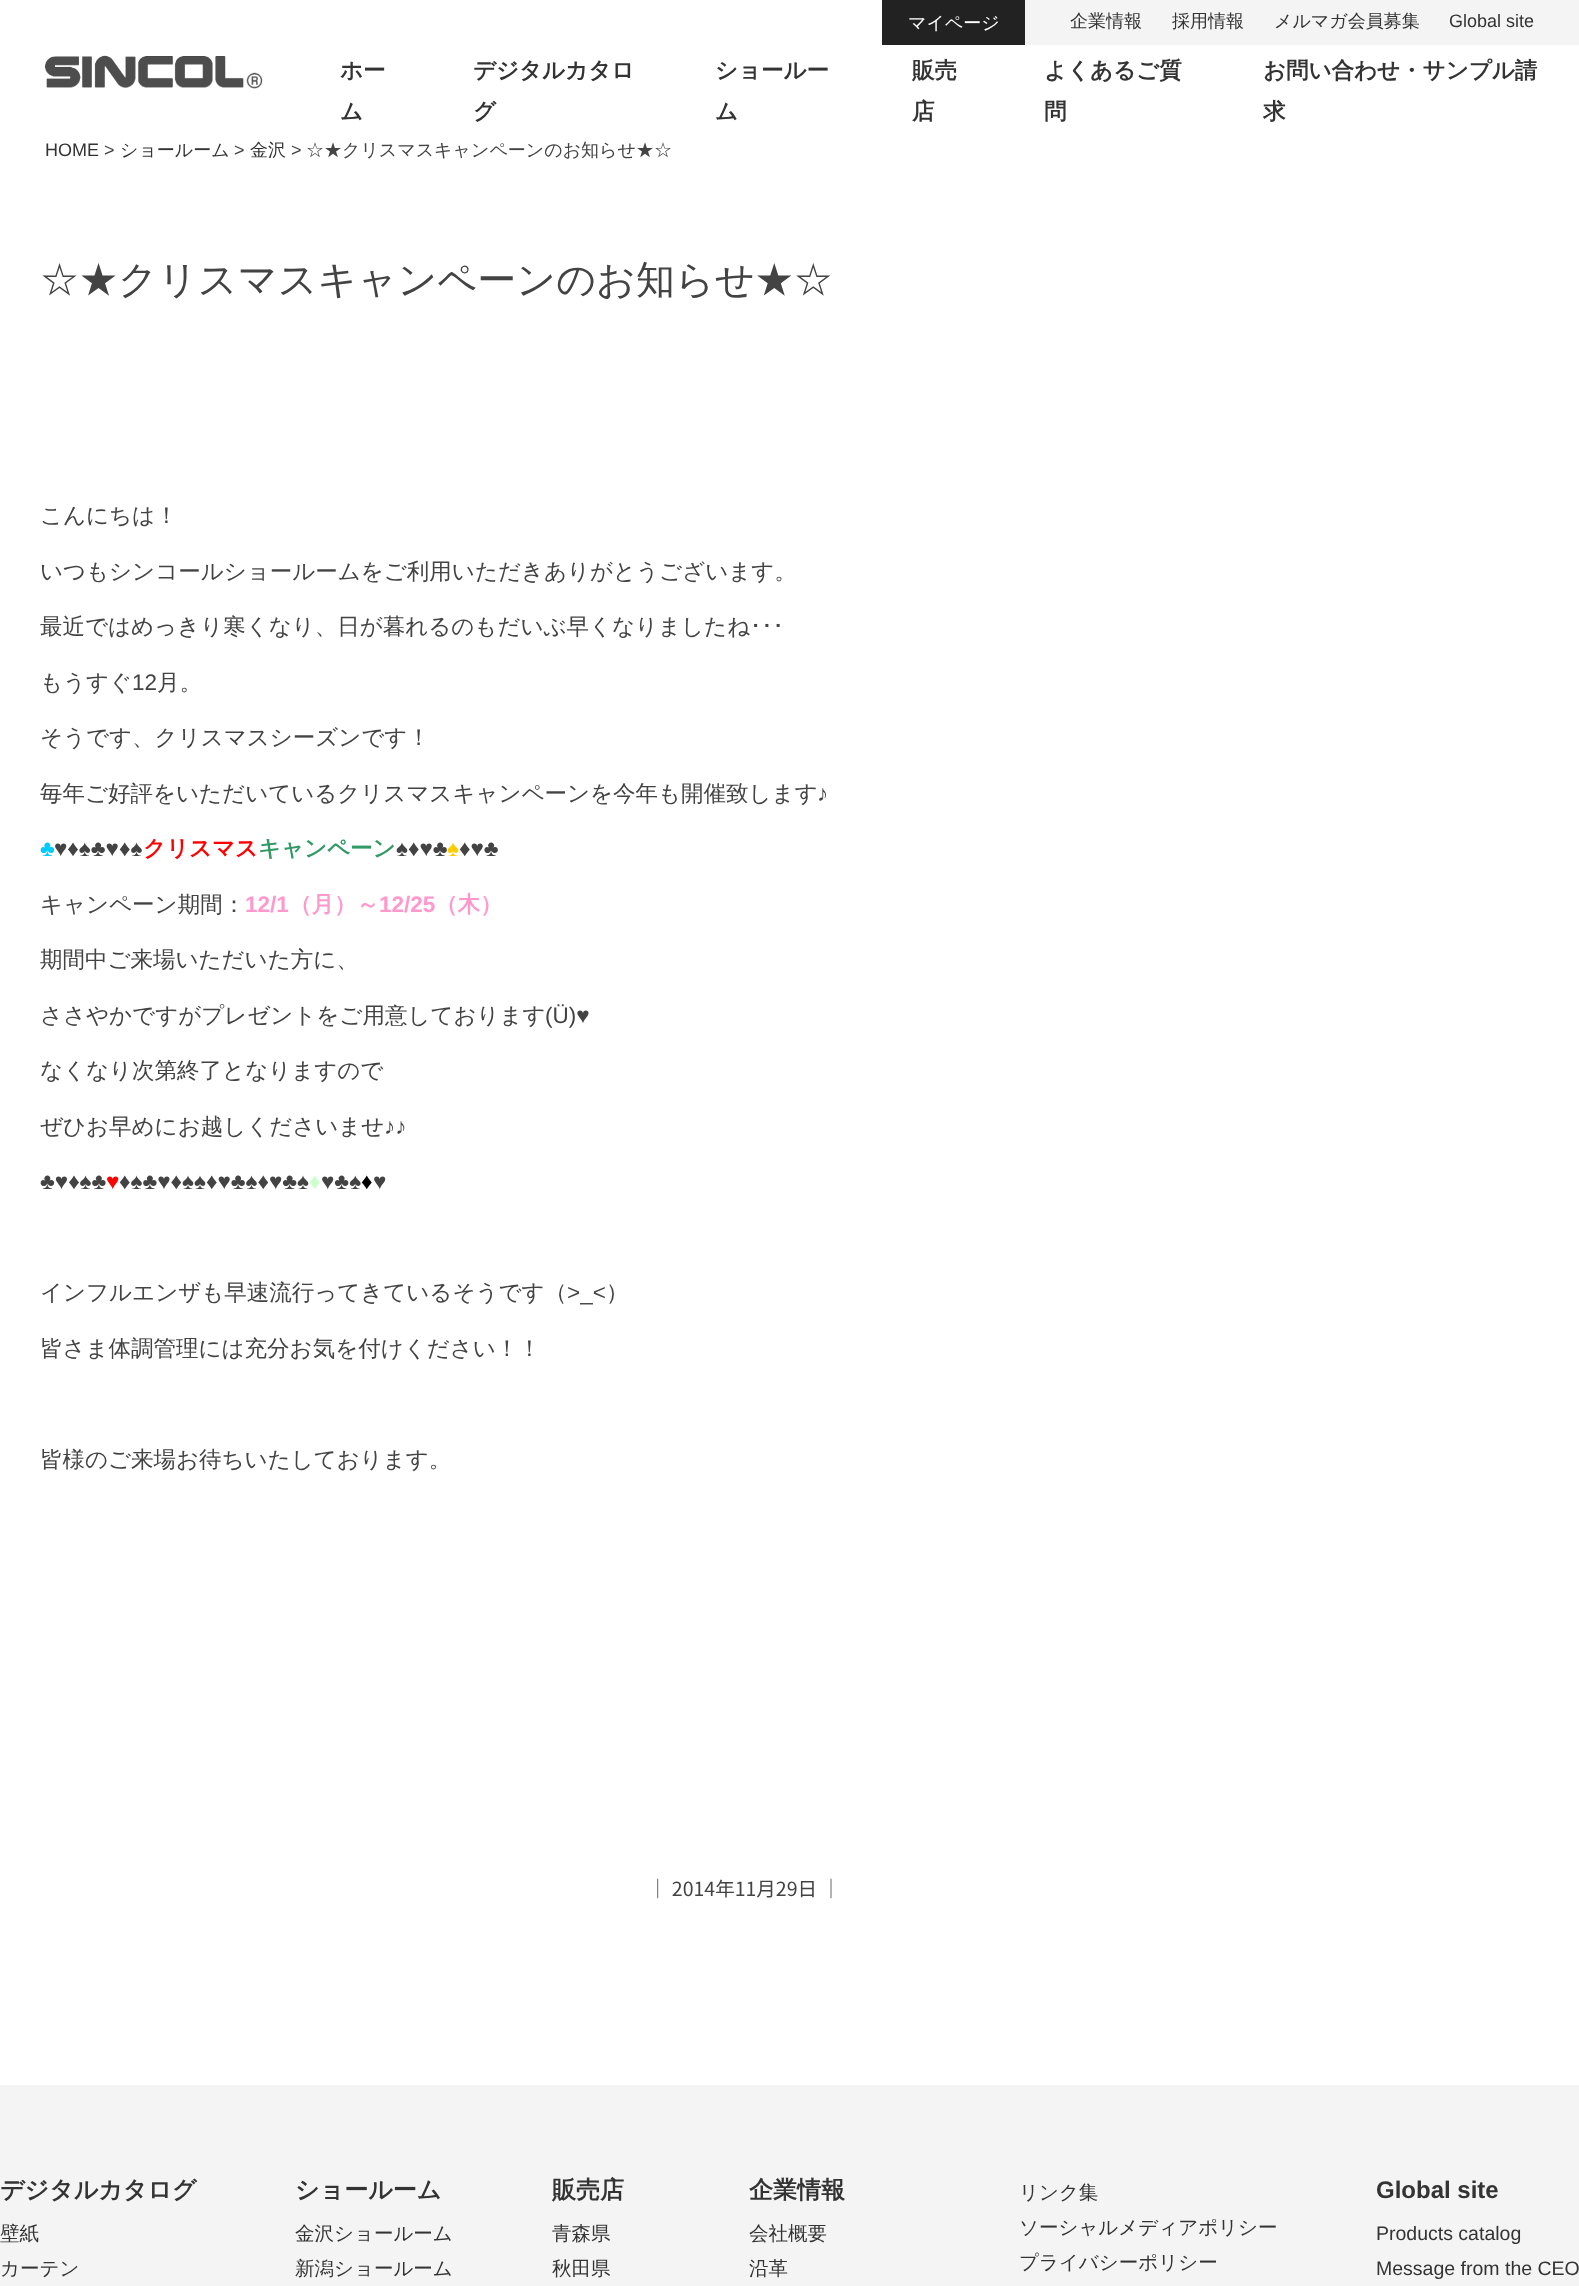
<svg xmlns="http://www.w3.org/2000/svg" width="1579" height="2286" viewBox="0 0 1579 2286">
  <rect width="100%" height="100%" fill="#ffffff"/>
  <image x="45" y="55" width="218" height="34" href="img1.png"/>
  <rect x="1025" y="0" width="554" height="45" fill="#f4f4f4"/>
  <rect x="882" y="0" width="143" height="45" fill="#222222"/>
  <text x="908" y="29" font-family="WenQuanYi Zen Hei" font-size="18" font-weight="500" fill="#ffffff">マイページ</text>
  <text x="1070" y="27" font-family="WenQuanYi Zen Hei" font-size="18" font-weight="500" fill="#333333">企業情報</text>
  <text x="1172" y="27" font-family="WenQuanYi Zen Hei" font-size="18" font-weight="500" fill="#333333">採用情報</text>
  <text x="1274" y="27" font-family="WenQuanYi Zen Hei" font-size="18" font-weight="500" fill="#333333">メルマガ会員募集</text>
  <text x="1449" y="27" font-family="Liberation Sans" font-size="18" fill="#333333">Global site</text>
  <text x="340" y="78" font-family="WenQuanYi Zen Hei" font-size="22.5" font-weight="bold" fill="#333333">ホー</text>
  <text x="340" y="119" font-family="WenQuanYi Zen Hei" font-size="22.5" font-weight="bold" fill="#333333">ム</text>
  <text x="473" y="78" font-family="WenQuanYi Zen Hei" font-size="22.5" font-weight="bold" fill="#333333">デジタルカタロ</text>
  <text x="473" y="119" font-family="WenQuanYi Zen Hei" font-size="22.5" font-weight="bold" fill="#333333">グ</text>
  <text x="715" y="78" font-family="WenQuanYi Zen Hei" font-size="22.5" font-weight="bold" fill="#333333">ショールー</text>
  <text x="715" y="119" font-family="WenQuanYi Zen Hei" font-size="22.5" font-weight="bold" fill="#333333">ム</text>
  <text x="912" y="78" font-family="WenQuanYi Zen Hei" font-size="22.5" font-weight="bold" fill="#333333">販売</text>
  <text x="912" y="119" font-family="WenQuanYi Zen Hei" font-size="22.5" font-weight="bold" fill="#333333">店</text>
  <text x="1044" y="78" font-family="WenQuanYi Zen Hei" font-size="22.5" font-weight="bold" fill="#333333">よくあるご質</text>
  <text x="1044" y="119" font-family="WenQuanYi Zen Hei" font-size="22.5" font-weight="bold" fill="#333333">問</text>
  <text x="1263" y="78" font-family="WenQuanYi Zen Hei" font-size="22.5" font-weight="bold" fill="#333333">お問い合わせ・サンプル請</text>
  <text x="1263" y="119" font-family="WenQuanYi Zen Hei" font-size="22.5" font-weight="bold" fill="#333333">求</text>
  <text x="45" y="156" font-family="Liberation Sans" font-size="18" fill="#333333">HOME</text>
  <text x="104" y="156" font-family="Liberation Sans" font-size="18" fill="#434343">&gt;</text>
  <text x="120" y="156" font-family="WenQuanYi Zen Hei" font-size="18" font-weight="500" fill="#333333">ショールーム</text>
  <text x="234" y="156" font-family="Liberation Sans" font-size="18" fill="#434343">&gt;</text>
  <text x="250" y="156" font-family="WenQuanYi Zen Hei" font-size="18" font-weight="500" fill="#333333">金沢</text>
  <text x="291" y="156" font-family="Liberation Sans" font-size="18" fill="#434343">&gt;</text>
  <text x="306" y="156" font-family="WenQuanYi Zen Hei" font-size="18" font-weight="500" fill="#434343">☆★クリスマスキャンペーンのお知らせ★☆</text>
  <text x="40" y="293" font-family="WenQuanYi Zen Hei" font-size="39" font-weight="500" fill="#434343">☆★クリスマスキャンペーンのお知らせ★☆</text>
  <text x="40" y="523" font-family="WenQuanYi Zen Hei" font-size="22.5" font-weight="500" fill="#434343">こんにちは！</text>
  <text x="40" y="579" font-family="WenQuanYi Zen Hei" font-size="22.5" font-weight="500" fill="#434343">いつもシンコールショールームをご利用いただきありがとうございます。</text>
  <text x="40" y="634" font-family="WenQuanYi Zen Hei" font-size="22.5" font-weight="500" fill="#434343">最近ではめっきり寒くなり、日が暮れるのもだいぶ早くなりましたね</text>
  <text x="750" y="634" font-family="IPAPGothic" font-size="22.5" fill="#434343">･･･</text>
  <text x="40" y="690" font-family="WenQuanYi Zen Hei" font-size="22.5" font-weight="500" fill="#434343">もうすぐ</text>
  <text x="132" y="690" font-family="Liberation Sans" font-size="22.5" fill="#434343">12</text>
  <text x="157" y="690" font-family="WenQuanYi Zen Hei" font-size="22.5" font-weight="500" fill="#434343">月。</text>
  <text x="40" y="745" font-family="WenQuanYi Zen Hei" font-size="22.5" font-weight="500" fill="#434343">そうです、クリスマスシーズンです！</text>
  <text x="40" y="801" font-family="WenQuanYi Zen Hei" font-size="22.5" font-weight="500" fill="#434343">毎年ご好評をいただいているクリスマスキャンペーンを今年も開催致します</text>
  <text x="817" y="801" font-family="Liberation Sans" font-size="22.5" fill="#434343">♪</text>
  <text x="40" y="856" font-family="Liberation Sans" font-size="22.5" fill="#00ccff">♣</text>
  <text x="54" y="856" font-family="Liberation Sans" font-size="22.5" fill="#434343">♥♦♠♣♥♦♠</text>
  <text x="143" y="856" font-family="WenQuanYi Zen Hei" font-size="22.5" font-weight="bold" fill="#ff0000">クリスマス</text>
  <text x="258" y="856" font-family="WenQuanYi Zen Hei" font-size="22.5" font-weight="bold" fill="#339966">キャンペーン</text>
  <text x="396" y="856" font-family="Liberation Sans" font-size="22.5" fill="#434343">♠♦♥♣</text>
  <text x="447" y="856" font-family="Liberation Sans" font-size="22.5" fill="#ffcc00">♠</text>
  <text x="459" y="856" font-family="Liberation Sans" font-size="22.5" fill="#434343">♦♥♣</text>
  <text x="40" y="912" font-family="WenQuanYi Zen Hei" font-size="22.5" font-weight="500" fill="#434343">キャンペーン期間：</text>
  <text x="245" y="912" font-family="Liberation Sans" font-size="22.5" font-weight="bold" fill="#ff99cc">12/1</text>
  <text x="289" y="912" font-family="WenQuanYi Zen Hei" font-size="22.5" font-weight="bold" fill="#ff99cc">（月）～</text>
  <text x="379" y="912" font-family="Liberation Sans" font-size="22.5" font-weight="bold" fill="#ff99cc">12/25</text>
  <text x="435" y="912" font-family="WenQuanYi Zen Hei" font-size="22.5" font-weight="bold" fill="#ff99cc">（木）</text>
  <text x="40" y="967" font-family="WenQuanYi Zen Hei" font-size="22.5" font-weight="500" fill="#434343">期間中ご来場いただいた方に、</text>
  <text x="40" y="1023" font-family="WenQuanYi Zen Hei" font-size="22.5" font-weight="500" fill="#434343">ささやかですがプレゼントをご用意しております</text>
  <text x="545" y="1023" font-family="Liberation Sans" font-size="22.5" fill="#434343">(Ü)♥</text>
  <text x="40" y="1078" font-family="WenQuanYi Zen Hei" font-size="22.5" font-weight="500" fill="#434343">なくなり次第終了となりますので</text>
  <text x="40" y="1134" font-family="WenQuanYi Zen Hei" font-size="22.5" font-weight="500" fill="#434343">ぜひお早めにお越しくださいませ</text>
  <text x="384" y="1134" font-family="Liberation Sans" font-size="22.5" fill="#434343">♪♪</text>
  <text x="40" y="1189" font-family="Liberation Sans" font-size="22.5" fill="#434343">♣♥♦♠♣</text>
  <text x="106" y="1189" font-family="Liberation Sans" font-size="22.5" fill="#ff0000">♥</text>
  <text x="119" y="1189" font-family="Liberation Sans" font-size="22.5" fill="#434343">♦♠♣♥♦♠♠♦♥♣♠♦♥♣♠</text>
  <text x="309" y="1189" font-family="Liberation Sans" font-size="22.5" fill="#ccffcc">♦</text>
  <text x="321" y="1189" font-family="Liberation Sans" font-size="22.5" fill="#434343">♥♣♠</text>
  <text x="361" y="1189" font-family="Liberation Sans" font-size="22.5" fill="#000000">♦</text>
  <text x="373" y="1189" font-family="Liberation Sans" font-size="22.5" fill="#434343">♥</text>
  <text x="40" y="1300" font-family="WenQuanYi Zen Hei" font-size="22.5" font-weight="500" fill="#434343">インフルエンザも早速流行ってきているそうです（</text>
  <text x="567" y="1300" font-family="Liberation Sans" font-size="22.5" fill="#434343">&gt;_&lt;</text>
  <text x="606" y="1300" font-family="WenQuanYi Zen Hei" font-size="22.5" font-weight="500" fill="#434343">）</text>
  <text x="40" y="1356" font-family="WenQuanYi Zen Hei" font-size="22.5" font-weight="500" fill="#434343">皆さま体調管理には充分お気を付けください！！</text>
  <text x="40" y="1467" font-family="WenQuanYi Zen Hei" font-size="22.5" font-weight="500" fill="#434343">皆様のご来場お待ちいたしております。</text>
  <text x="648" y="1896" font-family="Noto Sans JP" font-size="19.5" fill="#434343">│ 2014年11月29日 │</text>
  <rect x="0" y="2085" width="1579" height="201" fill="#f4f4f4"/>
  <text x="0" y="2198" font-family="WenQuanYi Zen Hei" font-size="24" font-weight="bold" fill="#333333">デジタルカタログ</text>
  <text x="0" y="2240" font-family="WenQuanYi Zen Hei" font-size="19.5" font-weight="500" fill="#333333">壁紙</text>
  <text x="0" y="2275" font-family="WenQuanYi Zen Hei" font-size="19.5" font-weight="500" fill="#333333">カーテン</text>
  <text x="295" y="2198" font-family="WenQuanYi Zen Hei" font-size="24" font-weight="bold" fill="#333333">ショールーム</text>
  <text x="295" y="2240" font-family="WenQuanYi Zen Hei" font-size="19.5" font-weight="500" fill="#333333">金沢ショールーム</text>
  <text x="295" y="2275" font-family="WenQuanYi Zen Hei" font-size="19.5" font-weight="500" fill="#333333">新潟ショールーム</text>
  <text x="552" y="2198" font-family="WenQuanYi Zen Hei" font-size="24" font-weight="bold" fill="#333333">販売店</text>
  <text x="552" y="2240" font-family="WenQuanYi Zen Hei" font-size="19.5" font-weight="500" fill="#333333">青森県</text>
  <text x="552" y="2275" font-family="WenQuanYi Zen Hei" font-size="19.5" font-weight="500" fill="#333333">秋田県</text>
  <text x="749" y="2198" font-family="WenQuanYi Zen Hei" font-size="24" font-weight="bold" fill="#333333">企業情報</text>
  <text x="749" y="2240" font-family="WenQuanYi Zen Hei" font-size="19.5" font-weight="500" fill="#333333">会社概要</text>
  <text x="749" y="2275" font-family="WenQuanYi Zen Hei" font-size="19.5" font-weight="500" fill="#333333">沿革</text>
  <text x="1019" y="2199" font-family="WenQuanYi Zen Hei" font-size="19.5" font-weight="500" fill="#333333">リンク集</text>
  <text x="1019" y="2234" font-family="WenQuanYi Zen Hei" font-size="19.5" font-weight="500" fill="#333333">ソーシャルメディアポリシー</text>
  <text x="1019" y="2269" font-family="WenQuanYi Zen Hei" font-size="19.5" font-weight="500" fill="#333333">プライバシーポリシー</text>
  <text x="1376" y="2198" font-family="Liberation Sans" font-size="24" font-weight="bold" fill="#333333">Global site</text>
  <text x="1376" y="2240" font-family="Liberation Sans" font-size="19.5" fill="#333333">Products catalog</text>
  <text x="1376" y="2275" font-family="Liberation Sans" font-size="19.5" fill="#333333">Message from the CEO</text>
</svg>
